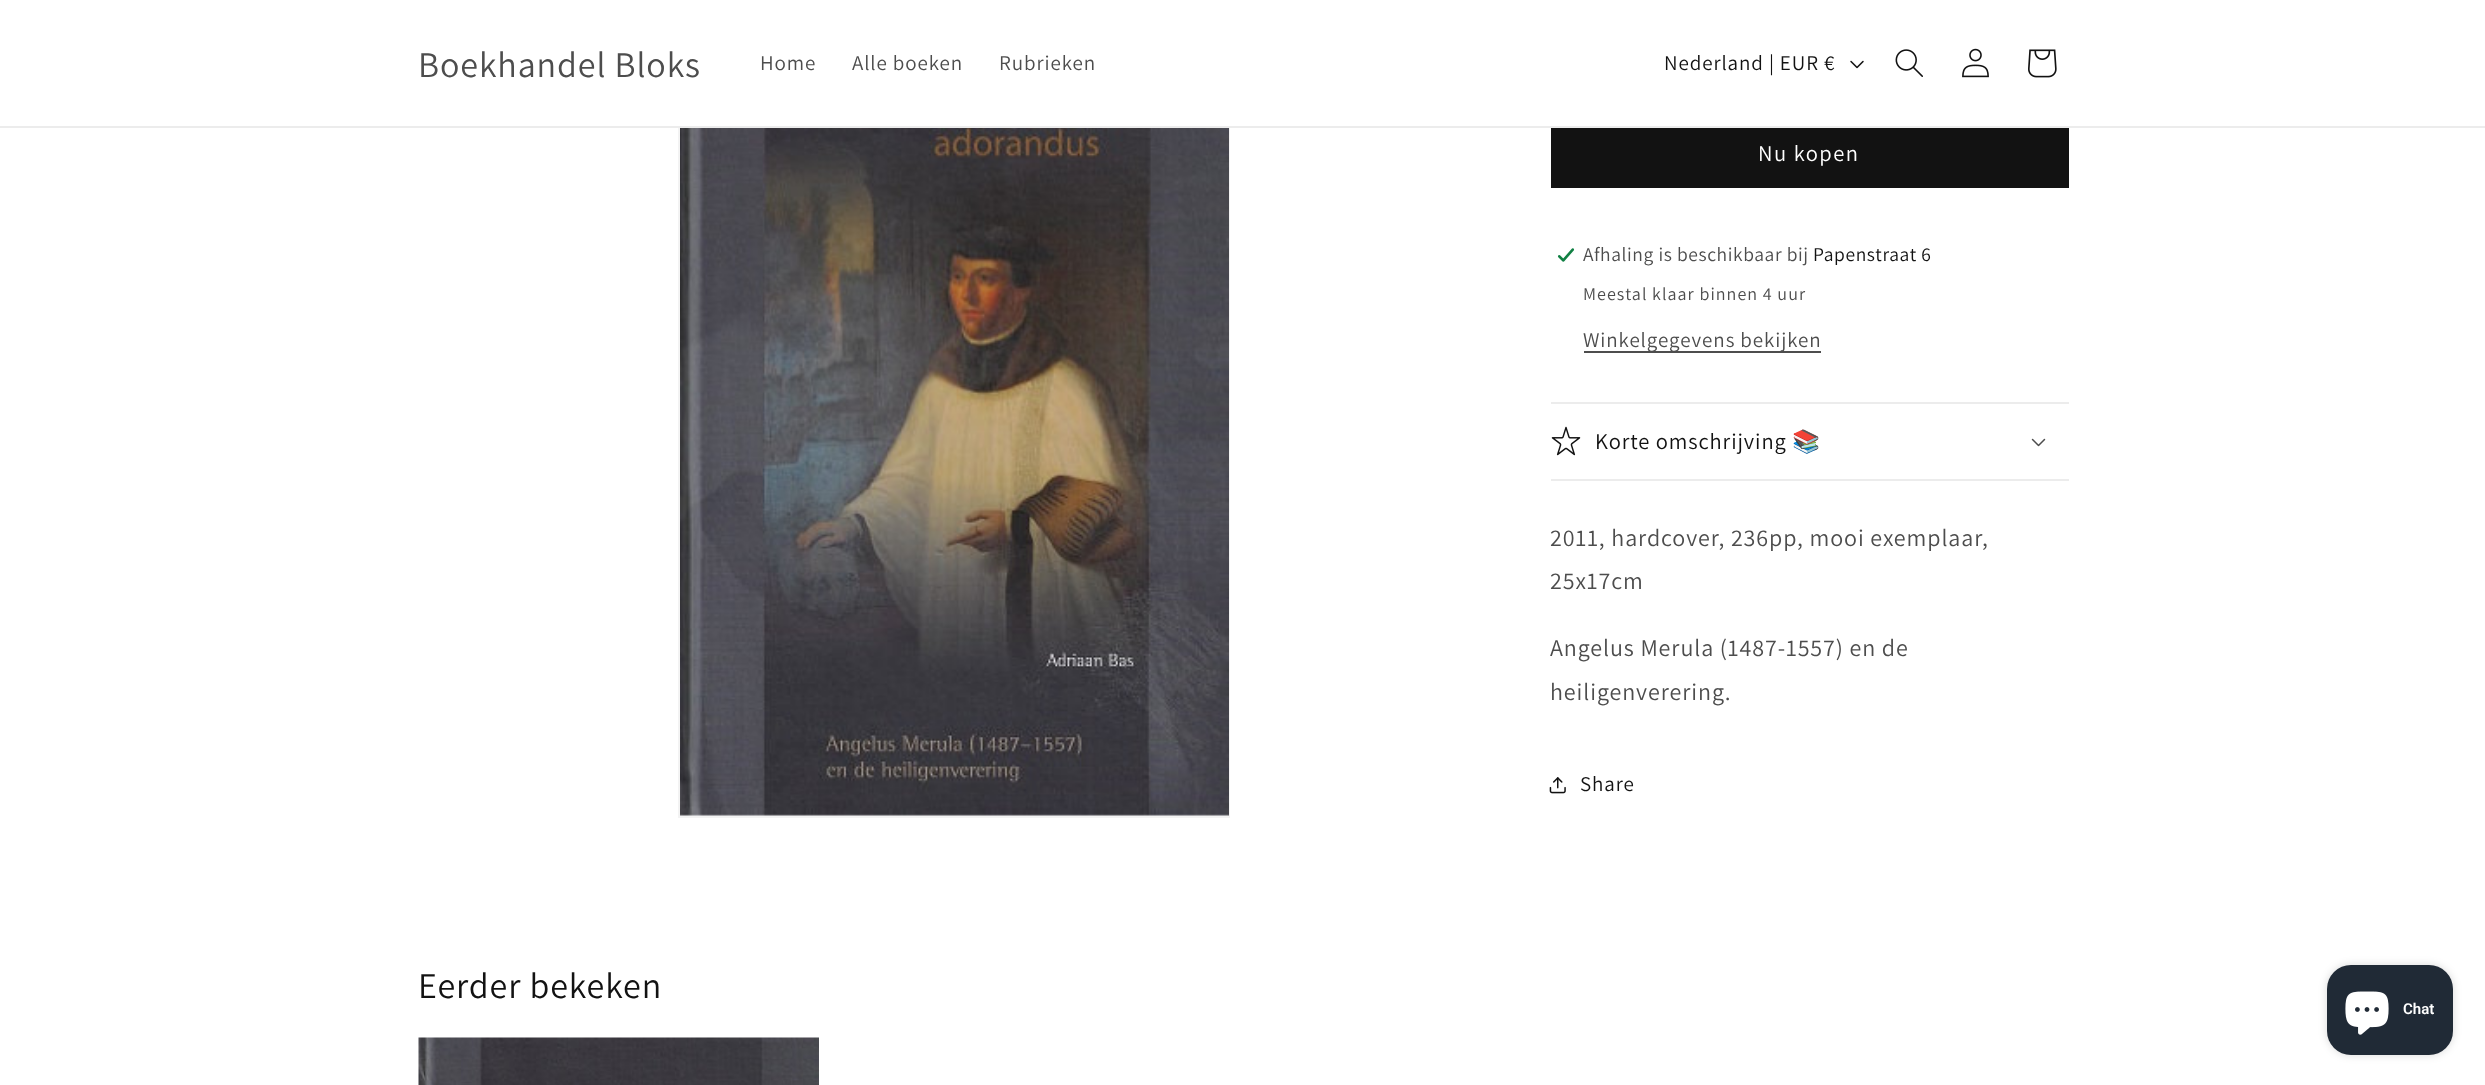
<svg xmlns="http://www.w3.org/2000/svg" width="2485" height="1085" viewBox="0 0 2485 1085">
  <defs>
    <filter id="blur1" x="-50%" y="-200%" width="200%" height="500%"><feGaussianBlur stdDeviation="4"/></filter>
  </defs>
  <rect width="100%" height="100%" fill="#ffffff"/>
  <rect x="679" y="-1" width="550" height="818" fill="none" stroke="#f3f3f3" stroke-width="2"/>
  <rect x="678" y="0" width="552" height="126" fill="#ffffff"/>
  <rect x="0" y="126" width="2485" height="2" fill="#ececec"/>
  <text x="418" y="77" font-family="Assistant" font-size="36" letter-spacing="0.9" fill="#4d4d4d">Boekhandel Bloks</text>
  <text x="760" y="70" font-family="Assistant" font-size="21" letter-spacing="0.9" fill="#4d4d4d">Home</text>
  <text x="852" y="70" font-family="Assistant" font-size="21" letter-spacing="0.9" fill="#4d4d4d">Alle boeken</text>
  <text x="999" y="70" font-family="Assistant" font-size="21" letter-spacing="0.9" fill="#4d4d4d">Rubrieken</text>
  <text x="1664" y="70" font-family="Assistant" font-size="21" letter-spacing="0.9" fill="#121212">Nederland | EUR €</text>
  <image x="1850" y="60" width="14" height="9" href="img1.png"/>
  <image x="1895" y="49" width="28" height="28" href="img2.png"/>
  <image x="1962" y="48" width="27" height="30" href="img3.png"/>
  <image x="2028" y="49" width="29" height="29" href="img4.png"/>
  <image x="680" y="128" width="549" height="688" href="img5.png"/>
  <rect x="1551" y="128" width="518" height="60" fill="#121212"/>
  <text x="1758" y="161" font-family="Assistant" font-size="22.5" letter-spacing="1.5" fill="#ffffff">Nu kopen</text>
  <image x="1557" y="248" width="18" height="14" href="img6.png"/>
  <text x="1583" y="261" font-family="Assistant" font-size="19.5" letter-spacing="0.6" fill="#4d4d4d">Afhaling is beschikbaar bij</text>
  <text x="1813" y="261" font-family="Assistant" font-size="19.5" letter-spacing="0.6" fill="#121212">Papenstraat 6</text>
  <text x="1583" y="300" font-family="Assistant" font-size="18" letter-spacing="1.05" fill="#4d4d4d">Meestal klaar binnen 4 uur</text>
  <rect x="1584" y="351" width="237" height="2" fill="#4d4d4d"/>
  <text x="1583" y="347" font-family="Assistant" font-size="21" letter-spacing="0.9" fill="#4d4d4d">Winkelgegevens bekijken</text>
  <rect x="1551" y="402" width="518" height="2" fill="#ececec"/>
  <rect x="1551" y="479" width="518" height="2" fill="#ececec"/>
  <image x="1551" y="426" width="30" height="30" href="img7.png"/>
  <text x="1595" y="449" font-family="Assistant" font-size="22.5" letter-spacing="0.9" fill="#121212">Korte omschrijving</text>
  <text x="1792" y="449" font-family="Noto Color Emoji" font-size="22.5" letter-spacing="0.9" fill="#121212">📚</text>
  <image x="2031" y="438" width="15" height="9" href="img8.png"/>
  <text x="1550" y="546" font-family="Assistant" font-size="24" letter-spacing="0.9" fill="#4d4d4d">2011, hardcover, 236pp, mooi exemplaar,</text>
  <text x="1550" y="589" font-family="Assistant" font-size="24" letter-spacing="0.9" fill="#4d4d4d">25x17cm</text>
  <text x="1550" y="656" font-family="Assistant" font-size="24" letter-spacing="0.9" fill="#4d4d4d">Angelus Merula (1487-1557) en de</text>
  <text x="1550" y="700" font-family="Assistant" font-size="24" letter-spacing="0.9" fill="#4d4d4d">heiligenverering.</text>
  <image x="1549" y="777" width="17" height="17" href="img9.png"/>
  <text x="1580" y="791" font-family="Assistant" font-size="21" letter-spacing="0.9" fill="#121212">Share</text>
  <text x="418" y="998" font-family="Assistant" font-size="36" letter-spacing="0.9" fill="#121212">Eerder bekeken</text>
  <image x="418" y="1037" width="401" height="48" href="img10.png"/>
  <rect x="2327" y="965" width="126" height="90" rx="24" fill="#000000" fill-opacity="0.15" filter="url(#blur1)"/>
  <rect x="2327" y="965" width="126" height="90" rx="24" fill="#202a36"/>
  <image x="2345" y="991" width="44" height="44" href="img11.png"/>
  <text x="2403" y="1014" font-family="Roboto" font-size="15" font-weight="600" fill="#ffffff">Chat</text>
</svg>
